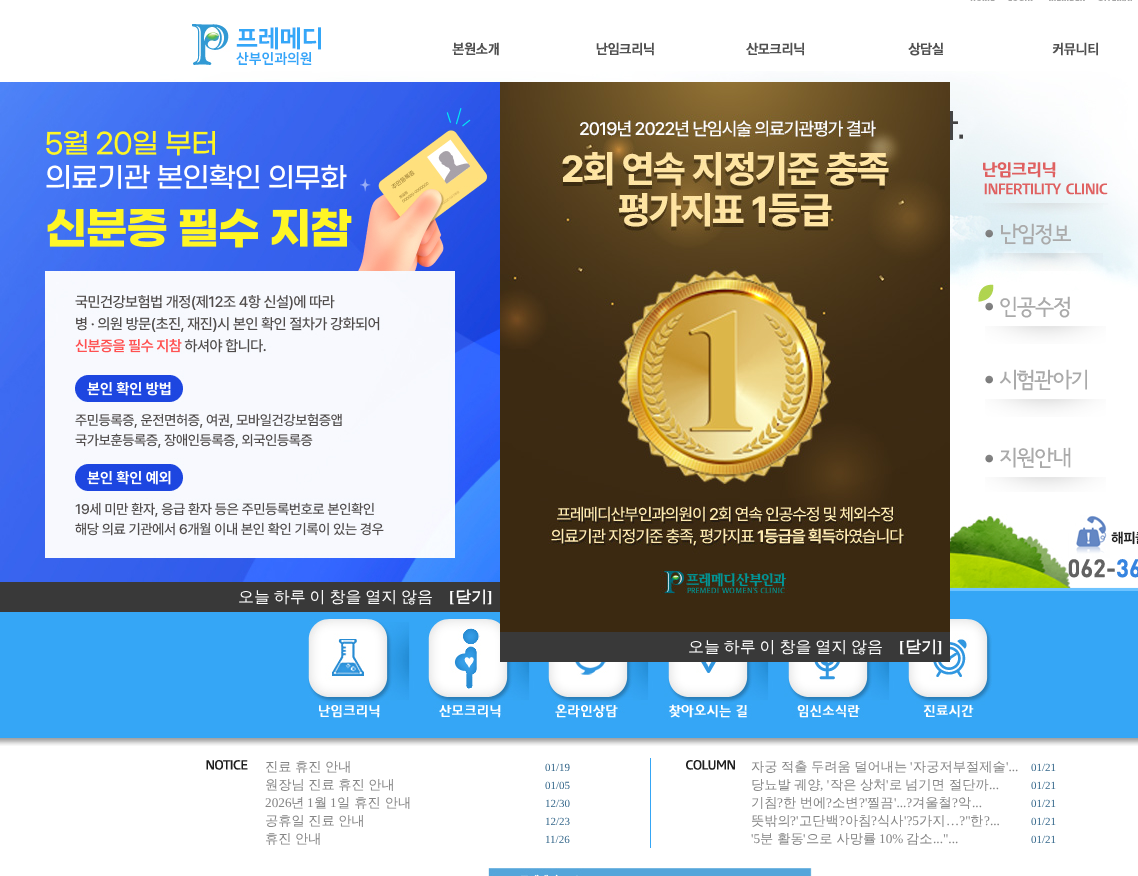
<svg xmlns="http://www.w3.org/2000/svg" width="1138" height="876" viewBox="0 0 1138 876">
  <rect width="100%" height="100%" fill="#ffffff"/>
  <image x="0" y="71" width="1138" height="517" href="img13.png"/>
  <image x="0" y="82" width="500" height="500" href="img1.png"/>
  <image x="0" y="588" width="1138" height="158" href="img20.png"/>
  <rect x="0" y="582" width="500" height="30" fill="#393939"/>
  <text x="238" y="602" word-spacing="-1" font-family="WenQuanYi Zen Hei" font-size="16" font-weight="500" fill="#ffffff">오늘 하루 이 창을 열지 않음</text>
  <text x="449" y="602" font-family="Liberation Serif" font-size="16" font-weight="bold" fill="#ffffff">[</text>
  <text x="455" y="602" font-family="WenQuanYi Zen Hei" font-size="16" font-weight="bold" fill="#ffffff">닫기</text>
  <text x="487" y="602" font-family="Liberation Serif" font-size="16" font-weight="bold" fill="#ffffff">]</text>
  <image x="409" y="619" width="120" height="100" href="img22.png"/>
  <image x="889" y="619" width="103" height="99" href="img26.png"/>
  <image x="500" y="82" width="450" height="550" href="img2.png"/>
  <rect x="500" y="632" width="450" height="30" fill="#393939"/>
  <text x="688" y="652" word-spacing="-1" font-family="WenQuanYi Zen Hei" font-size="16" font-weight="500" fill="#ffffff">오늘 하루 이 창을 열지 않음</text>
  <text x="899" y="652" font-family="Liberation Serif" font-size="16" font-weight="bold" fill="#ffffff">[</text>
  <text x="905" y="652" font-family="WenQuanYi Zen Hei" font-size="16" font-weight="bold" fill="#ffffff">닫기</text>
  <text x="937" y="652" font-family="Liberation Serif" font-size="16" font-weight="bold" fill="#ffffff">]</text>
  <image x="970" y="0" width="25" height="1" href="img3.png"/>
  <image x="1008" y="0" width="25" height="1" href="img4.png"/>
  <image x="1049" y="0" width="36" height="1" href="img5.png"/>
  <image x="1098" y="0" width="34" height="2" href="img6.png"/>
  <image x="192" y="24" width="129" height="41" href="img7.png"/>
  <image x="452" y="42" width="47" height="14" href="img8.png"/>
  <image x="596" y="42" width="58" height="14" href="img9.png"/>
  <image x="746" y="42" width="58" height="14" href="img10.png"/>
  <image x="908" y="42" width="35" height="14" href="img11.png"/>
  <image x="1052" y="42" width="46" height="14" href="img12.png"/>
  <image x="983" y="162" width="125" height="43" href="img14.png"/>
  <image x="985" y="205" width="118" height="66" href="img15.png"/>
  <image x="985" y="296" width="121" height="48" href="img16.png"/>
  <image x="985" y="369" width="121" height="48" href="img17.png"/>
  <image x="985" y="447" width="121" height="45" href="img18.png"/>
  <image x="1068" y="515" width="70" height="63" href="img19.png"/>
  <image x="308" y="619" width="101" height="101" href="img21.png"/>
  <image x="529" y="662" width="119" height="58" href="img23.png"/>
  <image x="648" y="662" width="120" height="58" href="img24.png"/>
  <image x="768" y="662" width="121" height="58" href="img25.png"/>
  <rect x="650" y="758" width="1" height="90" fill="#35a6f5"/>
  <image x="206" y="760" width="42" height="10" href="img27.png"/>
  <text x="265" y="771" word-spacing="-0.5" font-family="WenQuanYi Zen Hei" font-size="13.25" font-weight="500" fill="#858585">진료 휴진 안내</text>
  <text x="545" y="771" font-family="Liberation Serif" font-size="11" fill="#37698c">01/19</text>
  <text x="265" y="789" word-spacing="-0.5" font-family="WenQuanYi Zen Hei" font-size="13.25" font-weight="500" fill="#858585">원장님 진료 휴진 안내</text>
  <text x="545" y="789" font-family="Liberation Serif" font-size="11" fill="#37698c">01/05</text>
  <text x="265" y="807" font-family="Liberation Serif" font-size="13.25" fill="#858585">2026</text>
  <text x="291" y="807" font-family="WenQuanYi Zen Hei" font-size="13.25" font-weight="500" fill="#858585">년</text>
  <text x="307" y="807" font-family="Liberation Serif" font-size="13.25" fill="#858585">1</text>
  <text x="314" y="807" font-family="WenQuanYi Zen Hei" font-size="13.25" font-weight="500" fill="#858585">월</text>
  <text x="330" y="807" font-family="Liberation Serif" font-size="13.25" fill="#858585">1</text>
  <text x="337" y="807" font-family="WenQuanYi Zen Hei" font-size="13.25" font-weight="500" fill="#858585">일 휴진 안내</text>
  <text x="545" y="807" font-family="Liberation Serif" font-size="11" fill="#37698c">12/30</text>
  <text x="265" y="825" word-spacing="-0.5" font-family="WenQuanYi Zen Hei" font-size="13.25" font-weight="500" fill="#858585">공휴일 진료 안내</text>
  <text x="545" y="825" font-family="Liberation Serif" font-size="11" fill="#37698c">12/23</text>
  <text x="265" y="843" word-spacing="-0.5" font-family="WenQuanYi Zen Hei" font-size="13.25" font-weight="500" fill="#858585">휴진 안내</text>
  <text x="545" y="843" font-family="Liberation Serif" font-size="11" fill="#37698c">11/26</text>
  <image x="686" y="760" width="49" height="10" href="img28.png"/>
  <text x="751" y="771" word-spacing="-0.5" font-family="WenQuanYi Zen Hei" font-size="13.25" font-weight="500" fill="#858585">자궁 적출 두려움 덜어내는</text>
  <text x="910" y="771" font-family="Liberation Serif" font-size="13.25" fill="#858585">'</text>
  <text x="913" y="771" font-family="WenQuanYi Zen Hei" font-size="13.25" font-weight="500" fill="#858585">자궁저부절제술</text>
  <text x="1006" y="771" font-family="Liberation Serif" font-size="13.25" fill="#858585">'...</text>
  <text x="1031" y="771" font-family="Liberation Serif" font-size="11" fill="#37698c">01/21</text>
  <text x="751" y="789" font-family="WenQuanYi Zen Hei" font-size="13.25" font-weight="500" fill="#858585">당뇨발</text>
  <text x="794" y="789" font-family="WenQuanYi Zen Hei" font-size="13.25" font-weight="500" fill="#858585">궤양</text>
  <text x="820" y="789" font-family="Liberation Serif" font-size="13.25" fill="#858585">, '</text>
  <text x="830" y="789" font-family="WenQuanYi Zen Hei" font-size="13.25" font-weight="500" fill="#858585">작은</text>
  <text x="860" y="789" font-family="WenQuanYi Zen Hei" font-size="13.25" font-weight="500" fill="#858585">상처</text>
  <text x="886" y="789" font-family="Liberation Serif" font-size="13.25" fill="#858585">'</text>
  <text x="889" y="789" font-family="WenQuanYi Zen Hei" font-size="13.25" font-weight="500" fill="#858585">로</text>
  <text x="905" y="789" font-family="WenQuanYi Zen Hei" font-size="13.25" font-weight="500" fill="#858585">넘기면</text>
  <text x="949" y="789" font-family="WenQuanYi Zen Hei" font-size="13.25" font-weight="500" fill="#858585">절단까</text>
  <text x="989" y="789" font-family="Liberation Serif" font-size="13.25" fill="#858585">...</text>
  <text x="1031" y="789" font-family="Liberation Serif" font-size="11" fill="#37698c">01/21</text>
  <text x="751" y="807" font-family="WenQuanYi Zen Hei" font-size="13.25" font-weight="500" fill="#858585">기침</text>
  <text x="777" y="807" font-family="Liberation Serif" font-size="13.25" fill="#858585">?</text>
  <text x="783" y="807" word-spacing="-0.5" font-family="WenQuanYi Zen Hei" font-size="13.25" font-weight="500" fill="#858585">한 번에</text>
  <text x="826" y="807" font-family="Liberation Serif" font-size="13.25" fill="#858585">?</text>
  <text x="832" y="807" font-family="WenQuanYi Zen Hei" font-size="13.25" font-weight="500" fill="#858585">소변</text>
  <text x="859" y="807" font-family="Liberation Serif" font-size="13.25" fill="#858585">?'</text>
  <text x="867" y="807" font-family="WenQuanYi Zen Hei" font-size="13.25" font-weight="500" fill="#858585">찔끔</text>
  <text x="894" y="807" font-family="Liberation Serif" font-size="13.25" fill="#858585">'...?</text>
  <text x="912" y="807" font-family="WenQuanYi Zen Hei" font-size="13.25" font-weight="500" fill="#858585">겨울철</text>
  <text x="952" y="807" font-family="Liberation Serif" font-size="13.25" fill="#858585">?</text>
  <text x="958" y="807" font-family="WenQuanYi Zen Hei" font-size="13.25" font-weight="500" fill="#858585">악</text>
  <text x="972" y="807" font-family="Liberation Serif" font-size="13.25" fill="#858585">...</text>
  <text x="1031" y="807" font-family="Liberation Serif" font-size="11" fill="#37698c">01/21</text>
  <text x="751" y="825" font-family="WenQuanYi Zen Hei" font-size="13.25" font-weight="500" fill="#858585">뜻밖의</text>
  <text x="790" y="825" font-family="Liberation Serif" font-size="13.25" fill="#858585">?'</text>
  <text x="799" y="825" font-family="WenQuanYi Zen Hei" font-size="13.25" font-weight="500" fill="#858585">고단백</text>
  <text x="839" y="825" font-family="Liberation Serif" font-size="13.25" fill="#858585">?</text>
  <text x="845" y="825" font-family="WenQuanYi Zen Hei" font-size="13.25" font-weight="500" fill="#858585">아침</text>
  <text x="871" y="825" font-family="Liberation Serif" font-size="13.25" fill="#858585">?</text>
  <text x="877" y="825" font-family="WenQuanYi Zen Hei" font-size="13.25" font-weight="500" fill="#858585">식사</text>
  <text x="904" y="825" font-family="Liberation Serif" font-size="13.25" fill="#858585">'?5</text>
  <text x="919" y="825" font-family="WenQuanYi Zen Hei" font-size="13.25" font-weight="500" fill="#858585">가지</text>
  <text x="946" y="825" font-family="Liberation Serif" font-size="13.25" fill="#858585">…?"</text>
  <text x="970" y="825" font-family="WenQuanYi Zen Hei" font-size="13.25" font-weight="500" fill="#858585">한</text>
  <text x="984" y="825" font-family="Liberation Serif" font-size="13.25" fill="#858585">?...</text>
  <text x="1031" y="825" font-family="Liberation Serif" font-size="11" fill="#37698c">01/21</text>
  <text x="751" y="843" font-family="Liberation Serif" font-size="13.25" fill="#858585">'5</text>
  <text x="760" y="843" font-family="WenQuanYi Zen Hei" font-size="13.25" font-weight="500" fill="#858585">분 활동</text>
  <text x="803" y="843" font-family="Liberation Serif" font-size="13.25" fill="#858585">'</text>
  <text x="806" y="843" font-family="WenQuanYi Zen Hei" font-size="13.25" font-weight="500" fill="#858585">으로 사망률</text>
  <text x="879" y="843" font-family="Liberation Serif" font-size="13.25" fill="#858585">10%</text>
  <text x="906" y="843" font-family="WenQuanYi Zen Hei" font-size="13.25" font-weight="500" fill="#858585">감소</text>
  <text x="933" y="843" font-family="Liberation Serif" font-size="13.25" fill="#858585">..."...</text>
  <text x="1031" y="843" font-family="Liberation Serif" font-size="11" fill="#37698c">01/21</text>
  <image x="488" y="868" width="324" height="8" href="img29.png"/>
</svg>
